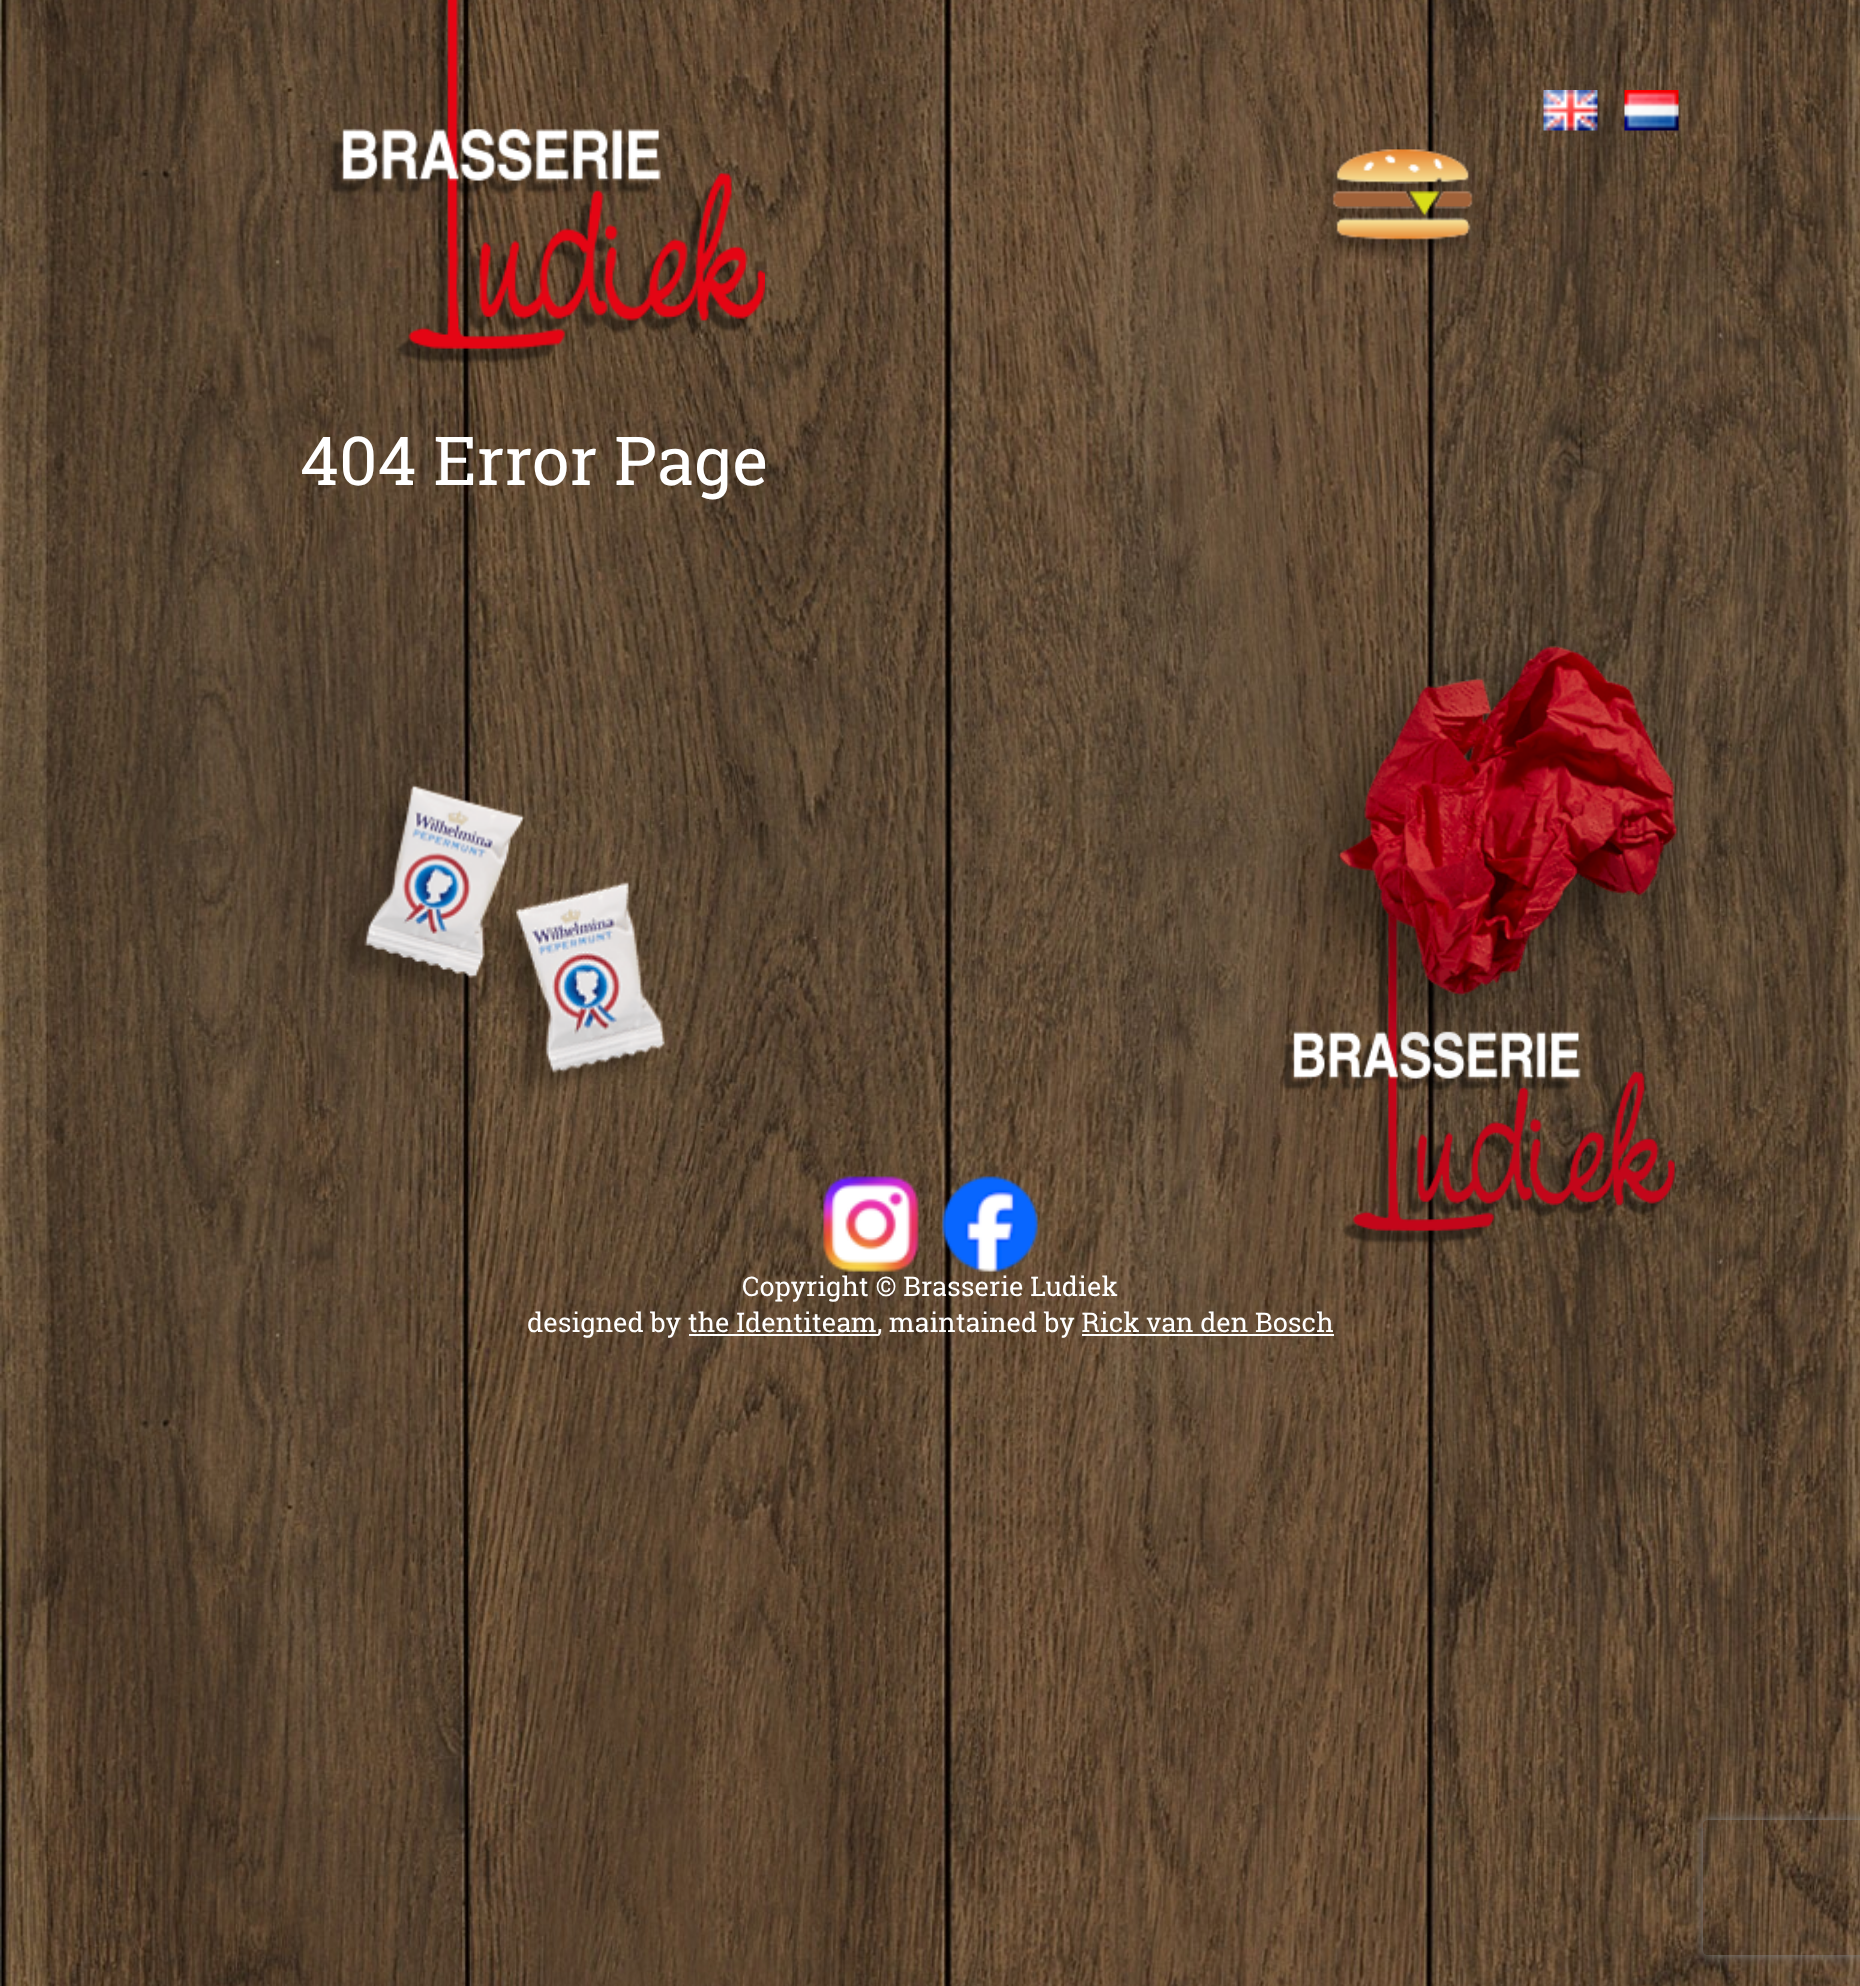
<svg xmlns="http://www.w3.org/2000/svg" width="1860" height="1986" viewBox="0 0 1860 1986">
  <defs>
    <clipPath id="clip1"><path d="M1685 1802H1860V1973H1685ZM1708 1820H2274C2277 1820 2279 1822 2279 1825V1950C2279 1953 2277 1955 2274 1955H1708C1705 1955 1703 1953 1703 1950V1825C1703 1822 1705 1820 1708 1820Z" clip-rule="evenodd"/></clipPath>
    <filter id="blur1" x="-50%" y="-200%" width="200%" height="500%"><feGaussianBlur stdDeviation="5.5"/></filter>
  </defs>
  <rect width="100%" height="100%" fill="#ffffff"/>
  <image x="0" y="0" width="1860" height="1986" href="img1.png"/>
  <image x="331" y="0" width="434" height="363" href="img2.png"/>
  <image x="1543" y="90" width="55" height="41" href="img3.png"/>
  <image x="1624" y="90" width="55" height="41" href="img4.png"/>
  <image x="1316" y="148" width="157" height="111" href="img5.png"/>
  <text x="300" y="485" font-family="Roboto Slab" font-size="67.5" fill="#ffffff">404 Error Page</text>
  <image x="337" y="784" width="328" height="310" href="img6.png"/>
  <image x="1283" y="645" width="395" height="599" href="img7.png"/>
  <image x="823" y="1176" width="96" height="96" href="img8.png"/>
  <image x="942" y="1176" width="96" height="96" href="img9.png"/>
  <text x="742" y="1296" font-family="Roboto Slab" font-size="27" fill="#ffffff">Copyright © Brasserie Ludiek</text>
  <text x="527" y="1332" font-family="Roboto Slab" font-size="27" fill="#ffffff">designed by the Identiteam</text>
  <rect x="689" y="1334" width="189" height="2" fill="#ffffff"/>
  <text x="877" y="1332" font-family="Roboto Slab" font-size="27" fill="#ffffff">, maintained by Rick van den Bosch</text>
  <rect x="1082" y="1334" width="252" height="2" fill="#ffffff"/>
  <g clip-path="url(#clip1)">
    <rect x="1703" y="1820" width="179" height="135" rx="5" fill="#808080" filter="url(#blur1)"/>
  </g>
</svg>
